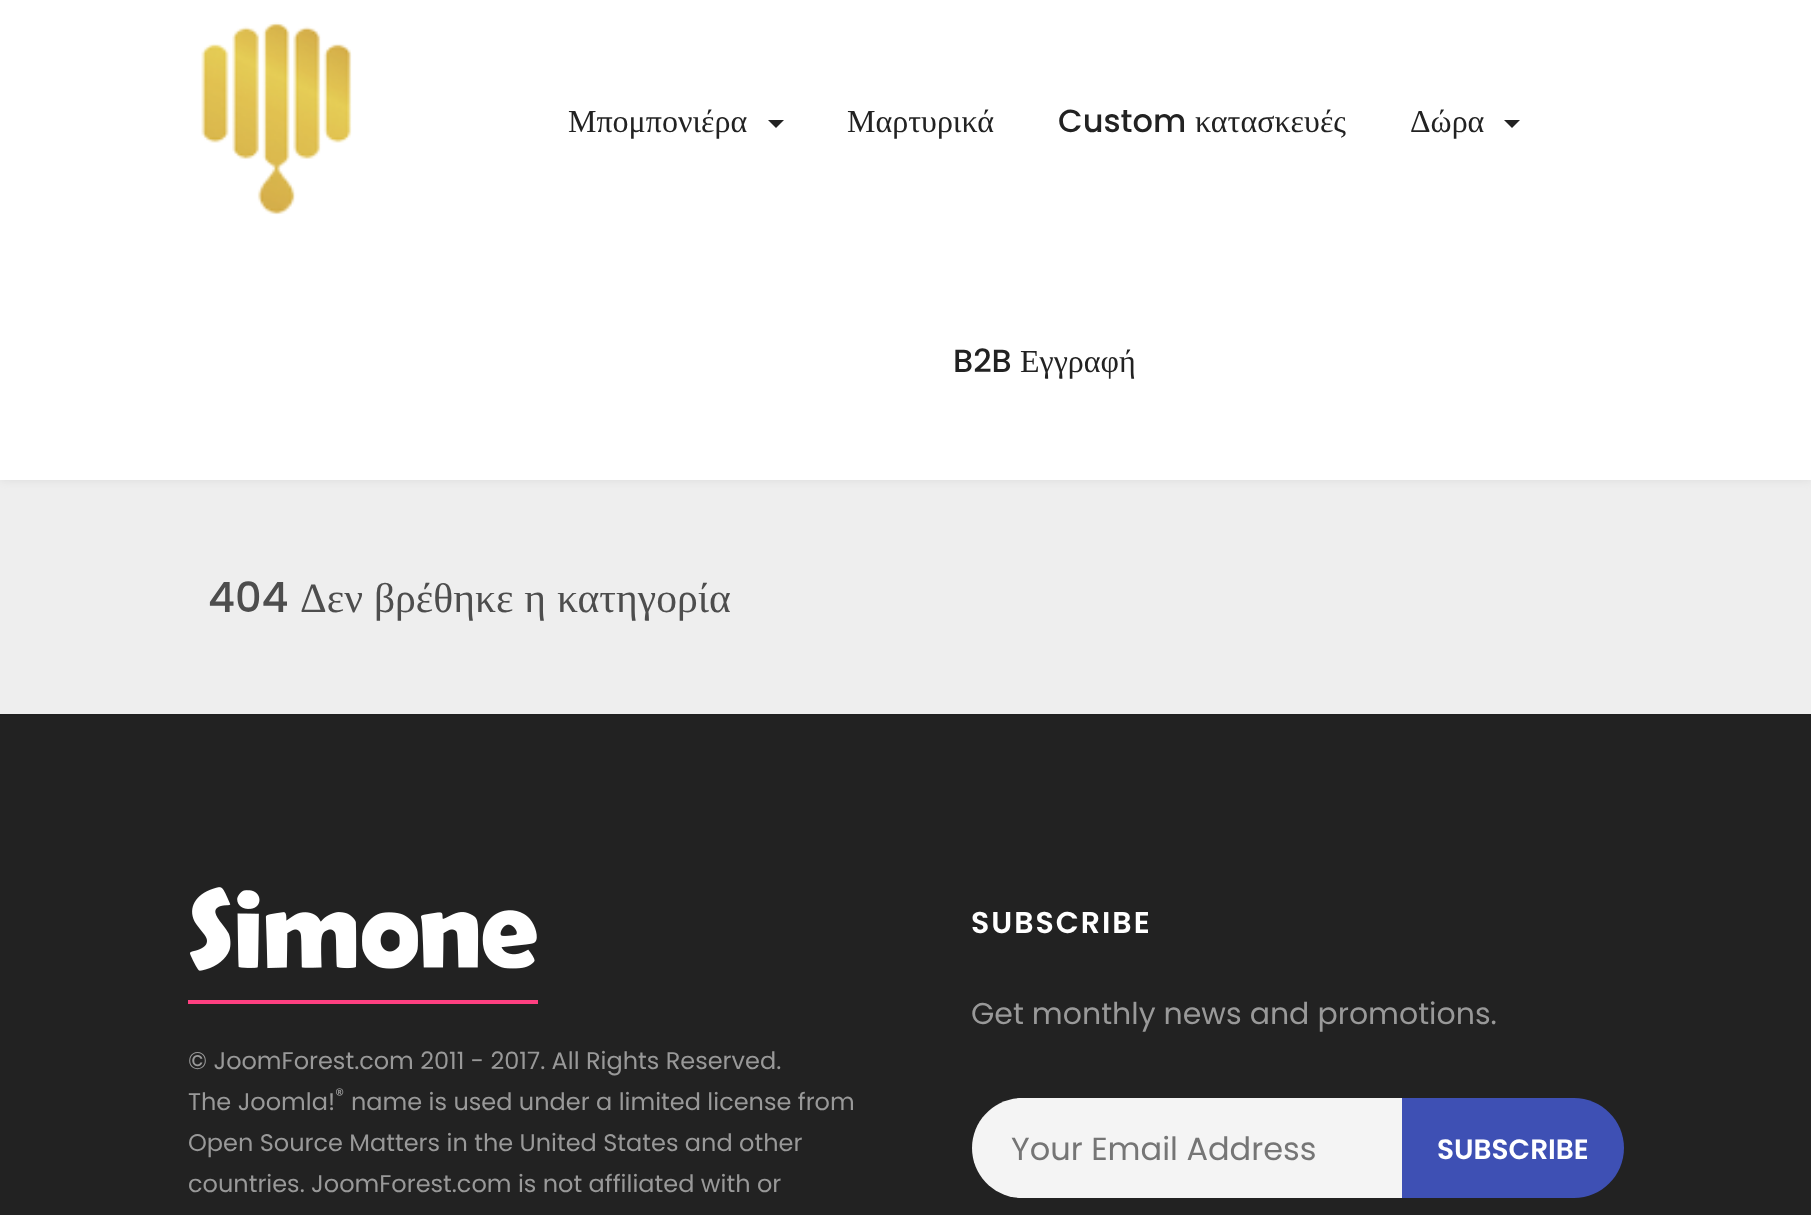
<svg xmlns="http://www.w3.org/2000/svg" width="1811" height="1215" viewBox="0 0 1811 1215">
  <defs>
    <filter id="blur1" x="-50%" y="-200%" width="200%" height="500%"><feGaussianBlur stdDeviation="5"/></filter>
  </defs>
  <rect width="100%" height="100%" fill="#eeeeee"/>
  <rect x="0" y="0" width="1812" height="480" fill="#dcdcdc" filter="url(#blur1)"/>
  <rect x="0" y="0" width="1811" height="480" fill="#ffffff"/>
  <image x="201" y="22" width="151" height="193" href="img1.png"/>
  <text x="568" y="132" font-family="Liberation Serif" font-size="32" fill="#222222">Μπομπονιέρα</text>
  <path d="M768 120H784L776 128Z" fill="#222222"/>
  <text x="847" y="132" font-family="Liberation Serif" font-size="32" fill="#222222">Μαρτυρικά</text>
  <text x="1058" y="132" font-family="Poppins" font-size="32" font-weight="500" fill="#222222">Custom</text>
  <text x="1195" y="132" font-family="Liberation Serif" font-size="32" fill="#222222">κατασκευές</text>
  <text x="1410" y="132" font-family="Liberation Serif" font-size="32" fill="#222222">Δώρα</text>
  <path d="M1504 120H1520L1512 128Z" fill="#222222"/>
  <text x="953" y="372" font-family="Poppins" font-size="32" font-weight="500" fill="#222222">B2B</text>
  <text x="1020" y="372" font-family="Liberation Serif" font-size="32" fill="#222222">Εγγραφή</text>
  <text x="208" y="612" font-family="Poppins" font-size="41.6" font-weight="500" fill="#4d4d4d">404</text>
  <text x="300" y="612" word-spacing="0.5" font-family="Liberation Serif" font-size="41.6" fill="#4d4d4d">Δεν βρέθηκε η κατηγορία</text>
  <rect x="0" y="716" width="1811" height="499" fill="#222222"/>
  <rect x="0" y="714" width="1811" height="2" fill="#202020"/>
  <rect x="188" y="1000" width="350" height="4" fill="#ff4081"/>
  <image x="190" y="887" width="347" height="84" href="img2.png"/>
  <text x="188" y="1069" font-family="Poppins" font-size="24" fill="#999999">© JoomForest.com 2011 - 2017. All Rights Reserved.</text>
  <text x="188" y="1110" font-family="Poppins" font-size="24" fill="#999999">The Joomla!</text>
  <text x="335" y="1101" font-family="Poppins" font-size="18" fill="#999999">®</text>
  <text x="351" y="1110" font-family="Poppins" font-size="24" fill="#999999">name is used under a limited license from</text>
  <text x="188" y="1151" font-family="Poppins" font-size="24" fill="#999999">Open Source Matters in the United States and other</text>
  <text x="188" y="1192" font-family="Poppins" font-size="24" fill="#999999">countries. JoomForest.com is not affiliated with or</text>
  <text x="971" y="933" font-family="Poppins" font-size="30" font-weight="600" letter-spacing="2" fill="#ffffff">SUBSCRIBE</text>
  <text x="971" y="1024" font-family="Poppins" font-size="30" fill="#999999">Get monthly news and promotions.</text>
  <path d="M1022 1098H1402V1198H1022C994.5 1198 972 1175.5 972 1148C972 1120.5 994.5 1098 1022 1098Z" fill="#f4f4f4"/>
  <text x="1011" y="1160" font-family="Poppins" font-size="32" fill="#757575">Your Email Address</text>
  <path d="M1402 1098H1574C1601.5 1098 1624 1120.5 1624 1148C1624 1175.5 1601.5 1198 1574 1198H1402Z" fill="#3e50b4"/>
  <text x="1437" y="1159" font-family="Poppins" font-size="28" font-weight="600" fill="#ffffff">SUBSCRIBE</text>
</svg>
